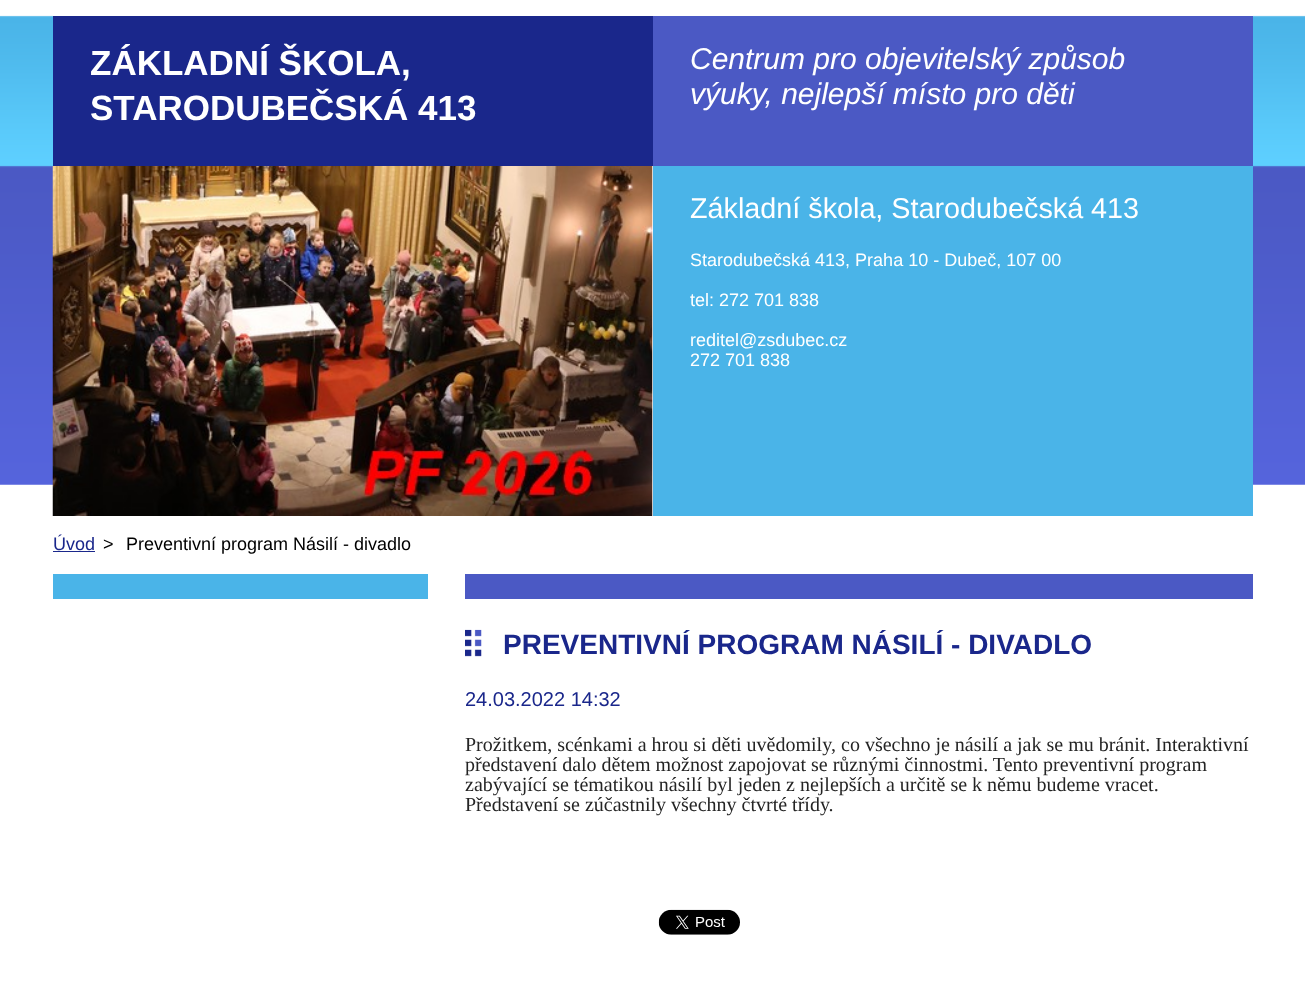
<svg xmlns="http://www.w3.org/2000/svg" width="1305" height="981" viewBox="0 0 1305 981">
  <defs>
    <clipPath id="clip1"><rect x="465" y="630" width="788" height="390"/></clipPath>
  </defs>
  <rect width="100%" height="100%" fill="#ffffff"/>
  <image x="0" y="15" width="1305" height="470" href="img1.png"/>
  <rect x="53" y="15" width="1200" height="1" fill="#ffffff"/>
  <rect x="53" y="16" width="600" height="150" fill="#1a278b"/>
  <text x="90" y="75" font-family="Liberation Sans" font-size="35" font-weight="bold" fill="#ffffff">ZÁKLADNÍ ŠKOLA,</text>
  <text x="90" y="120" font-family="Liberation Sans" font-size="35" font-weight="bold" fill="#ffffff">STARODUBEČSKÁ 413</text>
  <rect x="653" y="16" width="600" height="150" fill="#4b59c4"/>
  <text x="690" y="69" font-family="Liberation Sans" font-size="30" font-style="italic" fill="#ffffff">Centrum pro objevitelský způsob</text>
  <text x="690" y="104" font-family="Liberation Sans" font-size="30" font-style="italic" fill="#ffffff">výuky, nejlepší místo pro děti</text>
  <rect x="652" y="166" width="1" height="319" fill="#ffffff"/>
  <image x="52" y="166" width="601" height="350" href="img2.png"/>
  <rect x="653" y="166" width="600" height="350" fill="#4ab4e8"/>
  <text x="690" y="218" font-family="Liberation Sans" font-size="28.75" fill="#ffffff">Základní škola, Starodubečská 413</text>
  <text x="690" y="266" font-family="Liberation Sans" font-size="18" fill="#ffffff">Starodubečská 413, Praha 10 - Dubeč, 107 00</text>
  <text x="690" y="306" font-family="Liberation Sans" font-size="18" fill="#ffffff">tel: 272 701 838</text>
  <text x="690" y="346" font-family="Liberation Sans" font-size="18" fill="#ffffff">reditel@zsdubec.cz</text>
  <text x="690" y="366" font-family="Liberation Sans" font-size="18" fill="#ffffff">272 701 838</text>
  <text x="53" y="550" font-family="Liberation Sans" font-size="18" fill="#1a278b">Úvod</text>
  <rect x="53" y="551" width="42" height="1" fill="#1a278b"/>
  <text x="103" y="550" font-family="Liberation Sans" font-size="18" fill="#000000">&gt;</text>
  <text x="126" y="550" font-family="Liberation Sans" font-size="18" fill="#000000">Preventivní program Násilí - divadlo</text>
  <rect x="53" y="574" width="375" height="25" fill="#4ab4e8"/>
  <rect x="465" y="574" width="788" height="25" fill="#4b59c4"/>
  <image x="465" y="629" width="17" height="28" href="img3.png"/>
  <g clip-path="url(#clip1)">
    <text x="503" y="654" font-family="Liberation Sans" font-size="28" font-weight="bold" fill="#1a278b">PREVENTIVNÍ PROGRAM NÁSILÍ - DIVADLO</text>
  </g>
  <text x="465" y="706" font-family="Liberation Sans" font-size="20" fill="#1a278b">24.03.2022 14:32</text>
  <text x="465" y="751" font-family="Liberation Serif" font-size="20" fill="#252525">Prožitkem, scénkami a hrou si děti uvědomily</text>
  <text x="831" y="751" font-family="Liberation Serif" font-size="20" fill="#252525">, co všechno je násilí a jak se mu bránit. Interaktivní</text>
  <text x="465" y="771" font-family="Liberation Serif" font-size="20" fill="#252525">představení dalo dětem možnost zapojovat se různými činnostmi. Tento preventivní program</text>
  <text x="465" y="791" font-family="Liberation Serif" font-size="20" fill="#252525">zabývající se tématikou násilí byl jeden z nejlepších a určitě se k němu budeme vracet.</text>
  <text x="465" y="811" font-family="Liberation Serif" font-size="20" fill="#252525">Představení se zúčastnily všechny čtvrté třídy.</text>
  <image x="658" y="909" width="82" height="26" href="img4.png"/>
</svg>
